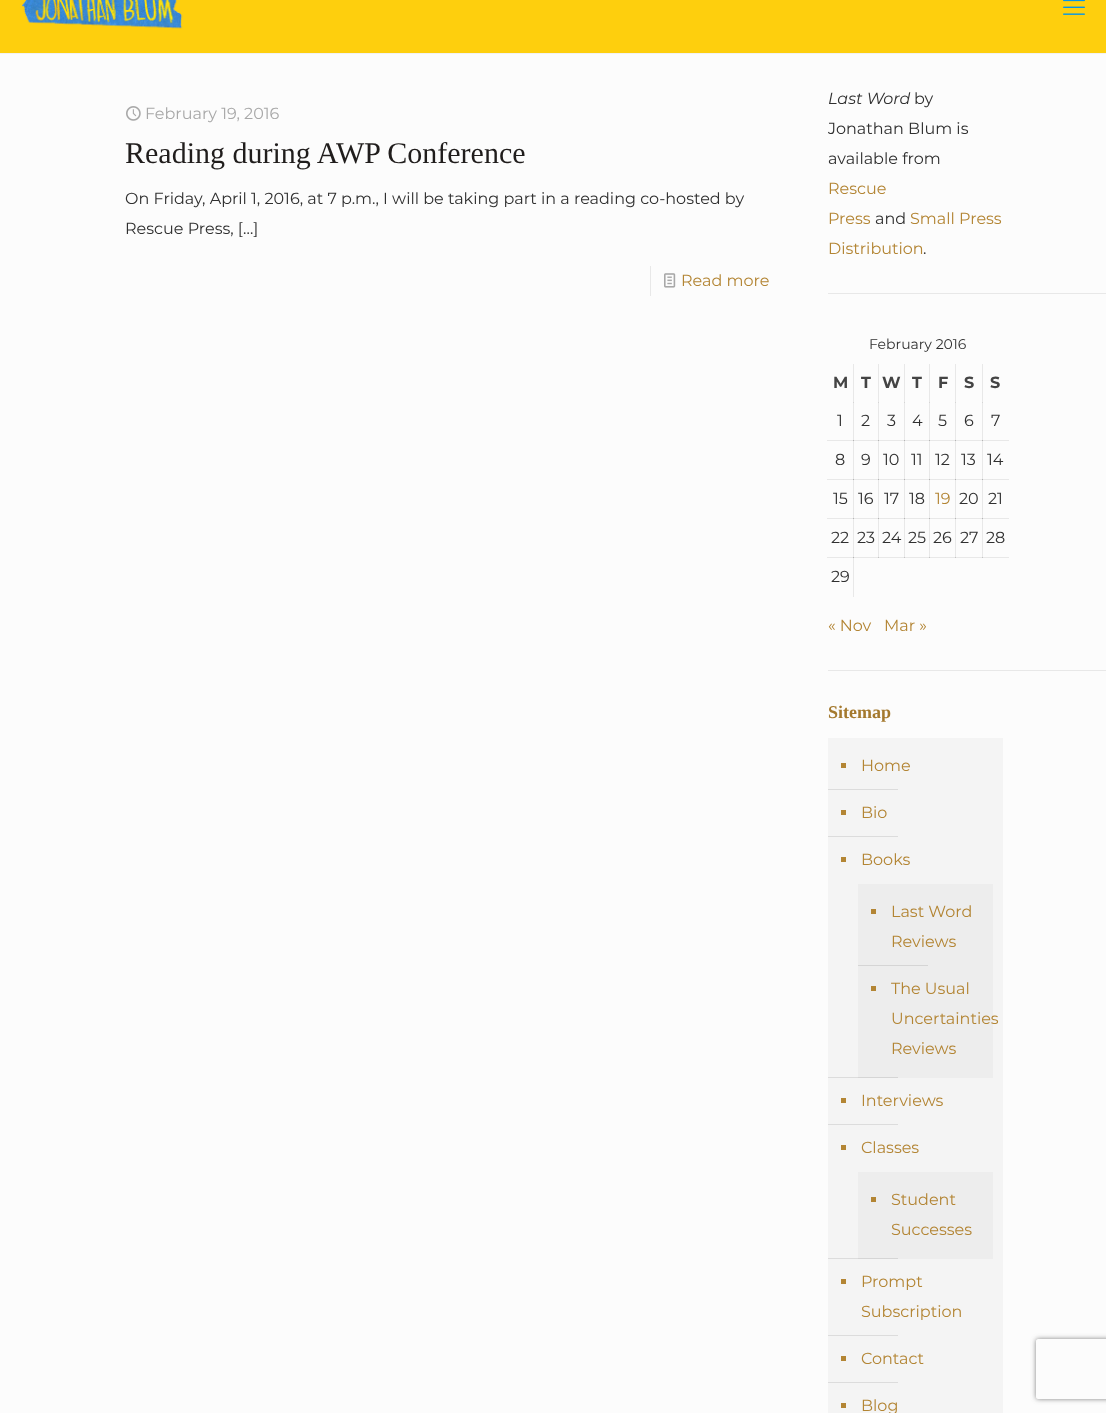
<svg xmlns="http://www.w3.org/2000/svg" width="1106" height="1413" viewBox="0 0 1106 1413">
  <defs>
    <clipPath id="clip1"><path d="M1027 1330H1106V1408H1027ZM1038 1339H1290C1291 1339 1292 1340 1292 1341V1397C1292 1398 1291 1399 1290 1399H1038C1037 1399 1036 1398 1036 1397V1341C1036 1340 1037 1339 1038 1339Z" clip-rule="evenodd"/></clipPath>
    <filter id="blur1" x="-50%" y="-200%" width="200%" height="500%"><feGaussianBlur stdDeviation="2.5"/></filter>
  </defs>
  <rect width="100%" height="100%" fill="#fcfcfc"/>
  <rect x="853" y="364" width="1" height="39" fill="#e8e8e8"/>
  <rect x="878" y="364" width="1" height="39" fill="#e8e8e8"/>
  <rect x="904" y="364" width="1" height="39" fill="#e8e8e8"/>
  <rect x="929" y="364" width="1" height="39" fill="#e8e8e8"/>
  <rect x="955" y="364" width="1" height="39" fill="#e8e8e8"/>
  <rect x="982" y="364" width="1" height="39" fill="#e8e8e8"/>
  <rect x="827" y="440" width="27" height="1" fill="#e8e8e8"/>
  <rect x="853" y="402" width="1" height="39" fill="#e8e8e8"/>
  <rect x="853" y="402" width="1" height="1" fill="#d5d5d5"/>
  <rect x="853" y="440" width="26" height="1" fill="#e8e8e8"/>
  <rect x="878" y="402" width="1" height="39" fill="#e8e8e8"/>
  <rect x="878" y="402" width="1" height="1" fill="#d5d5d5"/>
  <rect x="878" y="440" width="27" height="1" fill="#e8e8e8"/>
  <rect x="904" y="402" width="1" height="39" fill="#e8e8e8"/>
  <rect x="904" y="402" width="1" height="1" fill="#d5d5d5"/>
  <rect x="904" y="440" width="26" height="1" fill="#e8e8e8"/>
  <rect x="929" y="402" width="1" height="39" fill="#e8e8e8"/>
  <rect x="929" y="402" width="1" height="1" fill="#d5d5d5"/>
  <rect x="929" y="440" width="27" height="1" fill="#e8e8e8"/>
  <rect x="955" y="402" width="1" height="39" fill="#e8e8e8"/>
  <rect x="955" y="402" width="1" height="1" fill="#d5d5d5"/>
  <rect x="955" y="440" width="28" height="1" fill="#e8e8e8"/>
  <rect x="982" y="402" width="1" height="39" fill="#e8e8e8"/>
  <rect x="982" y="402" width="1" height="1" fill="#d5d5d5"/>
  <rect x="982" y="440" width="27" height="1" fill="#e8e8e8"/>
  <rect x="827" y="479" width="27" height="1" fill="#e8e8e8"/>
  <rect x="853" y="440" width="1" height="40" fill="#e8e8e8"/>
  <rect x="853" y="440" width="1" height="1" fill="#b4b4b4"/>
  <rect x="853" y="479" width="26" height="1" fill="#e8e8e8"/>
  <rect x="878" y="440" width="1" height="40" fill="#e8e8e8"/>
  <rect x="878" y="440" width="1" height="1" fill="#b4b4b4"/>
  <rect x="878" y="479" width="27" height="1" fill="#e8e8e8"/>
  <rect x="904" y="440" width="1" height="40" fill="#e8e8e8"/>
  <rect x="904" y="440" width="1" height="1" fill="#b4b4b4"/>
  <rect x="904" y="479" width="26" height="1" fill="#e8e8e8"/>
  <rect x="929" y="440" width="1" height="40" fill="#e8e8e8"/>
  <rect x="929" y="440" width="1" height="1" fill="#b4b4b4"/>
  <rect x="929" y="479" width="27" height="1" fill="#e8e8e8"/>
  <rect x="955" y="440" width="1" height="40" fill="#e8e8e8"/>
  <rect x="955" y="440" width="1" height="1" fill="#b4b4b4"/>
  <rect x="955" y="479" width="28" height="1" fill="#e8e8e8"/>
  <rect x="982" y="440" width="1" height="40" fill="#e8e8e8"/>
  <rect x="982" y="440" width="1" height="1" fill="#b4b4b4"/>
  <rect x="982" y="479" width="27" height="1" fill="#e8e8e8"/>
  <rect x="827" y="518" width="27" height="1" fill="#e8e8e8"/>
  <rect x="853" y="479" width="1" height="40" fill="#e8e8e8"/>
  <rect x="853" y="479" width="1" height="1" fill="#b4b4b4"/>
  <rect x="853" y="518" width="26" height="1" fill="#e8e8e8"/>
  <rect x="878" y="479" width="1" height="40" fill="#e8e8e8"/>
  <rect x="878" y="479" width="1" height="1" fill="#b4b4b4"/>
  <rect x="878" y="518" width="27" height="1" fill="#e8e8e8"/>
  <rect x="904" y="479" width="1" height="40" fill="#e8e8e8"/>
  <rect x="904" y="479" width="1" height="1" fill="#b4b4b4"/>
  <rect x="904" y="518" width="26" height="1" fill="#e8e8e8"/>
  <rect x="929" y="479" width="1" height="40" fill="#e8e8e8"/>
  <rect x="929" y="479" width="1" height="1" fill="#b4b4b4"/>
  <rect x="929" y="518" width="27" height="1" fill="#e8e8e8"/>
  <rect x="955" y="479" width="1" height="40" fill="#e8e8e8"/>
  <rect x="955" y="479" width="1" height="1" fill="#b4b4b4"/>
  <rect x="955" y="518" width="28" height="1" fill="#e8e8e8"/>
  <rect x="982" y="479" width="1" height="40" fill="#e8e8e8"/>
  <rect x="982" y="479" width="1" height="1" fill="#b4b4b4"/>
  <rect x="982" y="518" width="27" height="1" fill="#e8e8e8"/>
  <rect x="827" y="557" width="27" height="1" fill="#e8e8e8"/>
  <rect x="853" y="518" width="1" height="40" fill="#e8e8e8"/>
  <rect x="853" y="518" width="1" height="1" fill="#b4b4b4"/>
  <rect x="853" y="557" width="26" height="1" fill="#e8e8e8"/>
  <rect x="878" y="518" width="1" height="40" fill="#e8e8e8"/>
  <rect x="878" y="518" width="1" height="1" fill="#b4b4b4"/>
  <rect x="878" y="557" width="27" height="1" fill="#e8e8e8"/>
  <rect x="878" y="557" width="1" height="1" fill="#c4c4c4"/>
  <rect x="904" y="518" width="1" height="40" fill="#e8e8e8"/>
  <rect x="904" y="518" width="1" height="1" fill="#b4b4b4"/>
  <rect x="904" y="557" width="26" height="1" fill="#e8e8e8"/>
  <rect x="904" y="557" width="1" height="1" fill="#c4c4c4"/>
  <rect x="929" y="518" width="1" height="40" fill="#e8e8e8"/>
  <rect x="929" y="518" width="1" height="1" fill="#b4b4b4"/>
  <rect x="929" y="557" width="27" height="1" fill="#e8e8e8"/>
  <rect x="929" y="557" width="1" height="1" fill="#c4c4c4"/>
  <rect x="955" y="518" width="1" height="40" fill="#e8e8e8"/>
  <rect x="955" y="518" width="1" height="1" fill="#b4b4b4"/>
  <rect x="955" y="557" width="28" height="1" fill="#e8e8e8"/>
  <rect x="955" y="557" width="1" height="1" fill="#c4c4c4"/>
  <rect x="982" y="518" width="1" height="40" fill="#e8e8e8"/>
  <rect x="982" y="518" width="1" height="1" fill="#b4b4b4"/>
  <rect x="0" y="0" width="1106" height="53" fill="#fecf0d"/>
  <rect x="0" y="53" width="1106" height="1" fill="#f2f2f2"/>
  <image x="22" y="0" width="161" height="29" href="img1.png"/>
  <image x="1063" y="0" width="22" height="15" href="img2.png"/>
  <image x="126" y="106" width="15" height="15" href="img3.png"/>
  <text x="145" y="119" font-family="Montserrat" font-size="16" fill="#a8a8a8">February 19, 2016</text>
  <text x="125" y="163" font-family="Liberation Serif" font-size="30" fill="#201d1c">Reading during AWP Conference</text>
  <text x="125" y="204" font-family="Montserrat" font-size="16" fill="#303030">On Friday, April 1, 2016, at 7 p.m., I will be taking part in a reading co-hosted by</text>
  <text x="125" y="234" font-family="Montserrat" font-size="16" fill="#303030">Rescue Press, […]</text>
  <rect x="650" y="266" width="1" height="30" fill="#e8e8e8"/>
  <image x="664" y="273" width="12" height="15" href="img4.png"/>
  <text x="681" y="286" font-family="Montserrat" font-size="16" fill="#b38534">Read more</text>
  <text x="828" y="104" font-family="Montserrat" font-size="16" font-weight="100" font-style="italic" fill="#303030">Last Word</text>
  <text x="914" y="104" font-family="Montserrat" font-size="16" fill="#303030">by</text>
  <text x="828" y="134" font-family="Montserrat" font-size="16" fill="#303030">Jonathan Blum is</text>
  <text x="828" y="164" font-family="Montserrat" font-size="16" fill="#303030">available from</text>
  <text x="828" y="194" font-family="Montserrat" font-size="16" fill="#b38534">Rescue</text>
  <text x="828" y="224" font-family="Montserrat" font-size="16" fill="#b38534">Press</text>
  <text x="875" y="224" font-family="Montserrat" font-size="16" fill="#303030">and</text>
  <text x="910" y="224" font-family="Montserrat" font-size="16" fill="#b38534">Small Press</text>
  <text x="828" y="254" font-family="Montserrat" font-size="16" fill="#b38534">Distribution</text>
  <text x="923" y="254" font-family="Montserrat" font-size="16" fill="#303030">.</text>
  <rect x="828" y="293" width="278" height="1" fill="#e8e8e8"/>
  <text x="869" y="349" font-family="Montserrat" font-size="14" fill="#303030">February 2016</text>
  <text x="833" y="388" font-family="Montserrat" font-size="16" font-weight="bold" fill="#444444">M</text>
  <text x="861" y="388" font-family="Montserrat" font-size="16" font-weight="bold" fill="#444444">T</text>
  <text x="882" y="388" font-family="Montserrat" font-size="16" font-weight="bold" fill="#444444">W</text>
  <text x="912" y="388" font-family="Montserrat" font-size="16" font-weight="bold" fill="#444444">T</text>
  <text x="938" y="388" font-family="Montserrat" font-size="16" font-weight="bold" fill="#444444">F</text>
  <text x="964" y="388" font-family="Montserrat" font-size="16" font-weight="bold" fill="#444444">S</text>
  <text x="990" y="388" font-family="Montserrat" font-size="16" font-weight="bold" fill="#444444">S</text>
  <text x="837" y="426" font-family="Montserrat" font-size="16" fill="#303030">1</text>
  <text x="861" y="426" font-family="Montserrat" font-size="16" fill="#303030">2</text>
  <text x="887" y="426" font-family="Montserrat" font-size="16" fill="#303030">3</text>
  <text x="912" y="426" font-family="Montserrat" font-size="16" fill="#303030">4</text>
  <text x="938" y="426" font-family="Montserrat" font-size="16" fill="#303030">5</text>
  <text x="964" y="426" font-family="Montserrat" font-size="16" fill="#303030">6</text>
  <text x="991" y="426" font-family="Montserrat" font-size="16" fill="#303030">7</text>
  <text x="835" y="465" font-family="Montserrat" font-size="16" fill="#303030">8</text>
  <text x="861" y="465" font-family="Montserrat" font-size="16" fill="#303030">9</text>
  <text x="883" y="465" font-family="Montserrat" font-size="16" fill="#303030">10</text>
  <text x="911" y="465" font-family="Montserrat" font-size="16" fill="#303030">11</text>
  <text x="935" y="465" font-family="Montserrat" font-size="16" fill="#303030">12</text>
  <text x="961" y="465" font-family="Montserrat" font-size="16" fill="#303030">13</text>
  <text x="987" y="465" font-family="Montserrat" font-size="16" fill="#303030">14</text>
  <text x="833" y="504" font-family="Montserrat" font-size="16" fill="#303030">15</text>
  <text x="858" y="504" font-family="Montserrat" font-size="16" fill="#303030">16</text>
  <text x="884" y="504" font-family="Montserrat" font-size="16" fill="#303030">17</text>
  <text x="909" y="504" font-family="Montserrat" font-size="16" fill="#303030">18</text>
  <text x="935" y="504" font-family="Montserrat" font-size="16" fill="#b38534">19</text>
  <text x="959" y="504" font-family="Montserrat" font-size="16" fill="#303030">20</text>
  <text x="988" y="504" font-family="Montserrat" font-size="16" fill="#303030">21</text>
  <text x="831" y="543" font-family="Montserrat" font-size="16" fill="#303030">22</text>
  <text x="857" y="543" font-family="Montserrat" font-size="16" fill="#303030">23</text>
  <text x="882" y="543" font-family="Montserrat" font-size="16" fill="#303030">24</text>
  <text x="908" y="543" font-family="Montserrat" font-size="16" fill="#303030">25</text>
  <text x="933" y="543" font-family="Montserrat" font-size="16" fill="#303030">26</text>
  <text x="960" y="543" font-family="Montserrat" font-size="16" fill="#303030">27</text>
  <rect x="982" y="557" width="27" height="1" fill="#e8e8e8"/>
  <rect x="982" y="557" width="1" height="1" fill="#c4c4c4"/>
  <text x="986" y="543" font-family="Montserrat" font-size="16" fill="#303030">28</text>
  <rect x="853" y="557" width="1" height="40" fill="#e8e8e8"/>
  <rect x="853" y="557" width="1" height="1" fill="#b4b4b4"/>
  <text x="831" y="582" font-family="Montserrat" font-size="16" fill="#303030">29</text>
  <text x="828" y="631" font-family="Montserrat" font-size="16" fill="#b38534">« Nov</text>
  <text x="884" y="631" font-family="Montserrat" font-size="16" fill="#b38534">Mar »</text>
  <rect x="828" y="670" width="278" height="1" fill="#e8e8e8"/>
  <text x="828" y="718" font-family="Liberation Serif" font-size="18" font-weight="bold" fill="#a4792e">Sitemap</text>
  <rect x="828" y="738" width="175" height="675" fill="#f4f4f4"/>
  <rect x="828" y="1258" width="30" height="1" fill="#dcdcdc"/>
  <rect x="828" y="1077" width="30" height="1" fill="#dcdcdc"/>
  <rect x="841" y="763" width="5" height="5" fill="#b38534"/>
  <text x="861" y="771" font-family="Montserrat" font-size="16" fill="#b38534">Home</text>
  <rect x="828" y="789" width="70" height="1" fill="#dcdcdc"/>
  <rect x="841" y="810" width="5" height="5" fill="#b38534"/>
  <text x="861" y="818" font-family="Montserrat" font-size="16" fill="#b38534">Bio</text>
  <rect x="828" y="836" width="70" height="1" fill="#dcdcdc"/>
  <rect x="841" y="857" width="5" height="5" fill="#b38534"/>
  <text x="861" y="865" font-family="Montserrat" font-size="16" fill="#b38534">Books</text>
  <rect x="858" y="884" width="135" height="194" fill="#ededed"/>
  <rect x="858" y="1077" width="40" height="1" fill="#d5d5d5"/>
  <rect x="871" y="909" width="5" height="5" fill="#b38534"/>
  <text x="891" y="917" font-family="Montserrat" font-size="16" fill="#b38534">Last Word</text>
  <text x="891" y="947" font-family="Montserrat" font-size="16" fill="#b38534">Reviews</text>
  <rect x="858" y="965" width="70" height="1" fill="#d5d5d5"/>
  <rect x="871" y="986" width="5" height="5" fill="#b38534"/>
  <text x="891" y="994" font-family="Montserrat" font-size="16" fill="#b38534">The Usual</text>
  <text x="891" y="1024" font-family="Montserrat" font-size="16" fill="#b38534">Uncertainties</text>
  <text x="891" y="1054" font-family="Montserrat" font-size="16" fill="#b38534">Reviews</text>
  <rect x="841" y="1098" width="5" height="5" fill="#b38534"/>
  <text x="861" y="1106" font-family="Montserrat" font-size="16" fill="#b38534">Interviews</text>
  <rect x="828" y="1124" width="70" height="1" fill="#dcdcdc"/>
  <rect x="841" y="1145" width="5" height="5" fill="#b38534"/>
  <text x="861" y="1153" font-family="Montserrat" font-size="16" fill="#b38534">Classes</text>
  <rect x="858" y="1172" width="135" height="87" fill="#ededed"/>
  <rect x="858" y="1258" width="40" height="1" fill="#d5d5d5"/>
  <rect x="871" y="1197" width="5" height="5" fill="#b38534"/>
  <text x="891" y="1205" font-family="Montserrat" font-size="16" fill="#b38534">Student</text>
  <text x="891" y="1235" font-family="Montserrat" font-size="16" fill="#b38534">Successes</text>
  <rect x="841" y="1279" width="5" height="5" fill="#b38534"/>
  <text x="861" y="1287" font-family="Montserrat" font-size="16" fill="#b38534">Prompt</text>
  <text x="861" y="1317" font-family="Montserrat" font-size="16" fill="#b38534">Subscription</text>
  <rect x="828" y="1335" width="70" height="1" fill="#dcdcdc"/>
  <rect x="841" y="1356" width="5" height="5" fill="#b38534"/>
  <text x="861" y="1364" font-family="Montserrat" font-size="16" fill="#b38534">Contact</text>
  <rect x="828" y="1382" width="70" height="1" fill="#dcdcdc"/>
  <rect x="841" y="1403" width="5" height="5" fill="#b38534"/>
  <text x="861" y="1411" font-family="Montserrat" font-size="16" fill="#b38534">Blog</text>
  <g clip-path="url(#clip1)">
    <rect x="1036" y="1339" width="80" height="60" rx="2" fill="#808080" filter="url(#blur1)"/>
  </g>
</svg>
